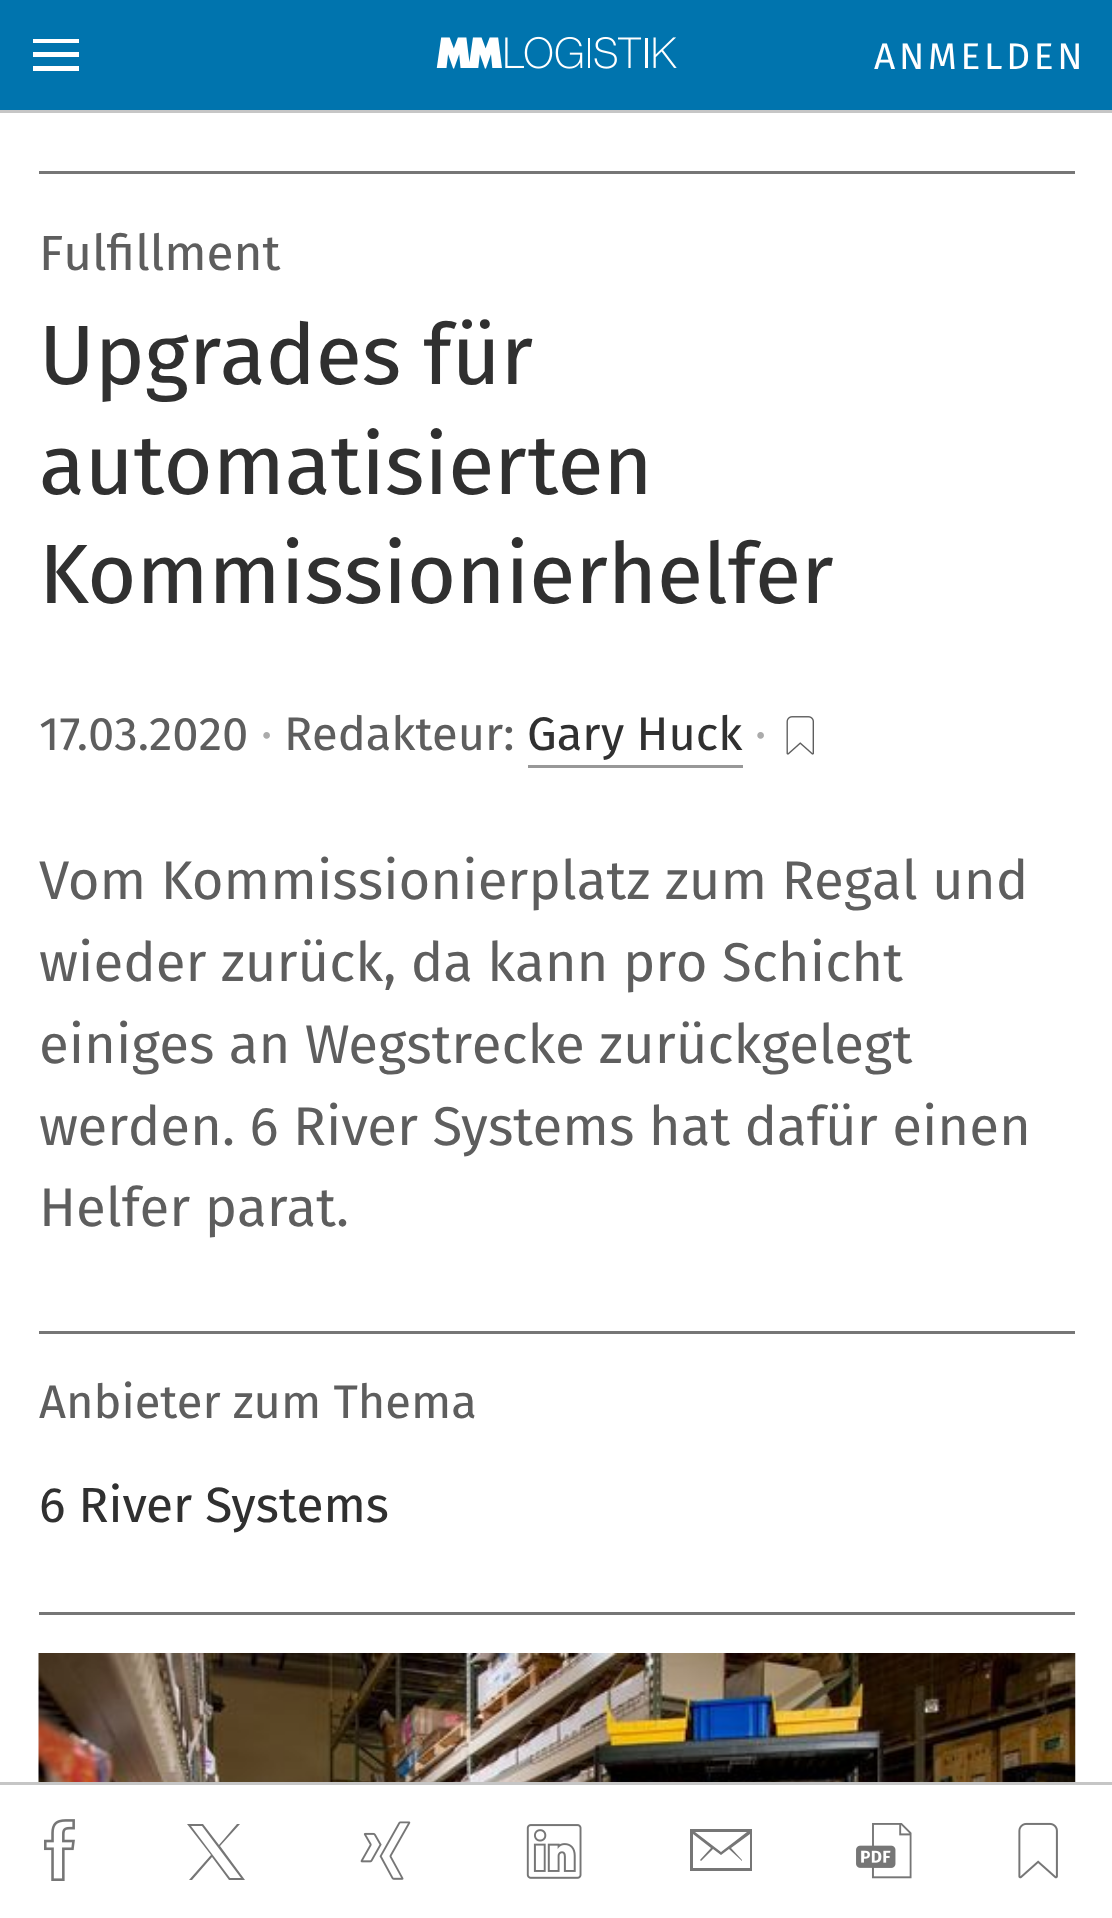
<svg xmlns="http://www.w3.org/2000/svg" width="1112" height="1918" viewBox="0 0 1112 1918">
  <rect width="100%" height="100%" fill="#ffffff"/>
  <rect x="0" y="110" width="1112" height="3" fill="#c6c6c6"/>
  <rect x="0" y="0" width="1112" height="110" fill="#0074ae"/>
  <path d="M33 57V52H79V57ZM33 43V39H79V43ZM33 71V66H79V71Z" fill="#ffffff"/>
  <image x="436" y="36" width="241" height="33" href="img1.png"/>
  <text x="874" y="69" font-family="'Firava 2'" font-size="37" letter-spacing="3.75" fill="#ffffff">ANMELDEN</text>
  <rect x="39" y="171" width="1036" height="3" fill="#767676"/>
  <text x="39" y="270" font-family="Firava" font-size="49.5" fill="#5e5e5e">Fulfillment</text>
  <text x="39" y="384" font-family="Firava" font-size="84.25" fill="#303030">Upgrades für</text>
  <text x="39" y="494" font-family="Firava" font-size="84.25" fill="#303030">automatisierten</text>
  <text x="39" y="603" font-family="Firava" font-size="84.25" fill="#303030">Kommissionierhelfer</text>
  <text x="39" y="750" font-family="Firava" font-size="47" fill="#5e5e5e">17.03.2020</text>
  <text x="261" y="750" font-family="Firava" font-size="47" fill="#ababab">·</text>
  <text x="284" y="750" font-family="Firava" font-size="47" fill="#5e5e5e">Redakteur:</text>
  <text x="527" y="750" font-family="Firava" font-size="47" fill="#303030">Gary Huck</text>
  <rect x="528" y="765" width="215" height="3" fill="#989898"/>
  <text x="755" y="750" font-family="Firava" font-size="47" fill="#ababab">·</text>
  <image x="786" y="716" width="28" height="39" href="img2.png"/>
  <text x="39" y="899" font-family="'Firava 2'" font-size="54.5" fill="#5e5e5e">Vom Kommissionierplatz zum Regal und</text>
  <text x="39" y="981" font-family="'Firava 2'" font-size="54.5" fill="#5e5e5e">wieder zurück, da kann pro Schicht</text>
  <text x="39" y="1063" font-family="'Firava 2'" font-size="54.5" fill="#5e5e5e">einiges an Wegstrecke zurückgelegt</text>
  <text x="39" y="1145" font-family="'Firava 2'" font-size="54.5" fill="#5e5e5e">werden. 6 River Systems hat dafür einen</text>
  <text x="39" y="1226" font-family="'Firava 2'" font-size="54.5" fill="#5e5e5e">Helfer parat.</text>
  <rect x="39" y="1331" width="1036" height="3" fill="#767676"/>
  <rect x="39" y="1612" width="1036" height="3" fill="#767676"/>
  <text x="39" y="1418" font-family="Firava" font-size="47" fill="#5e5e5e">Anbieter zum Thema</text>
  <text x="39" y="1522" font-family="Firava" font-size="49.5" fill="#303030">6 River Systems</text>
  <image x="38" y="1653" width="1038" height="129" href="img3.png"/>
  <rect x="0" y="1782" width="1112" height="3" fill="#c6c6c6"/>
  <image x="44" y="1819" width="31" height="62" href="img4.png"/>
  <path d="M189 1880H192L212 1857L229 1880H245L220 1846L240 1824H237L219 1845L203 1824H187L211 1855ZM191 1826H202L241 1878H230Z" fill="#767676"/>
  <image x="360" y="1821" width="51" height="59" href="img5.png"/>
  <image x="526" y="1824" width="56" height="55" href="img6.png"/>
  <path d="M690 1829H752V1871H690ZM721 1852L747 1832H695ZM693 1868H750V1834L731 1848L742 1860V1861L729 1849L721 1855L713 1849L701 1861L700 1860L711 1848L693 1834Z" fill="#767676"/>
  <image x="856" y="1823" width="56" height="56" href="img7.png"/>
  <image x="1018" y="1822" width="40" height="57" href="img8.png"/>
</svg>
